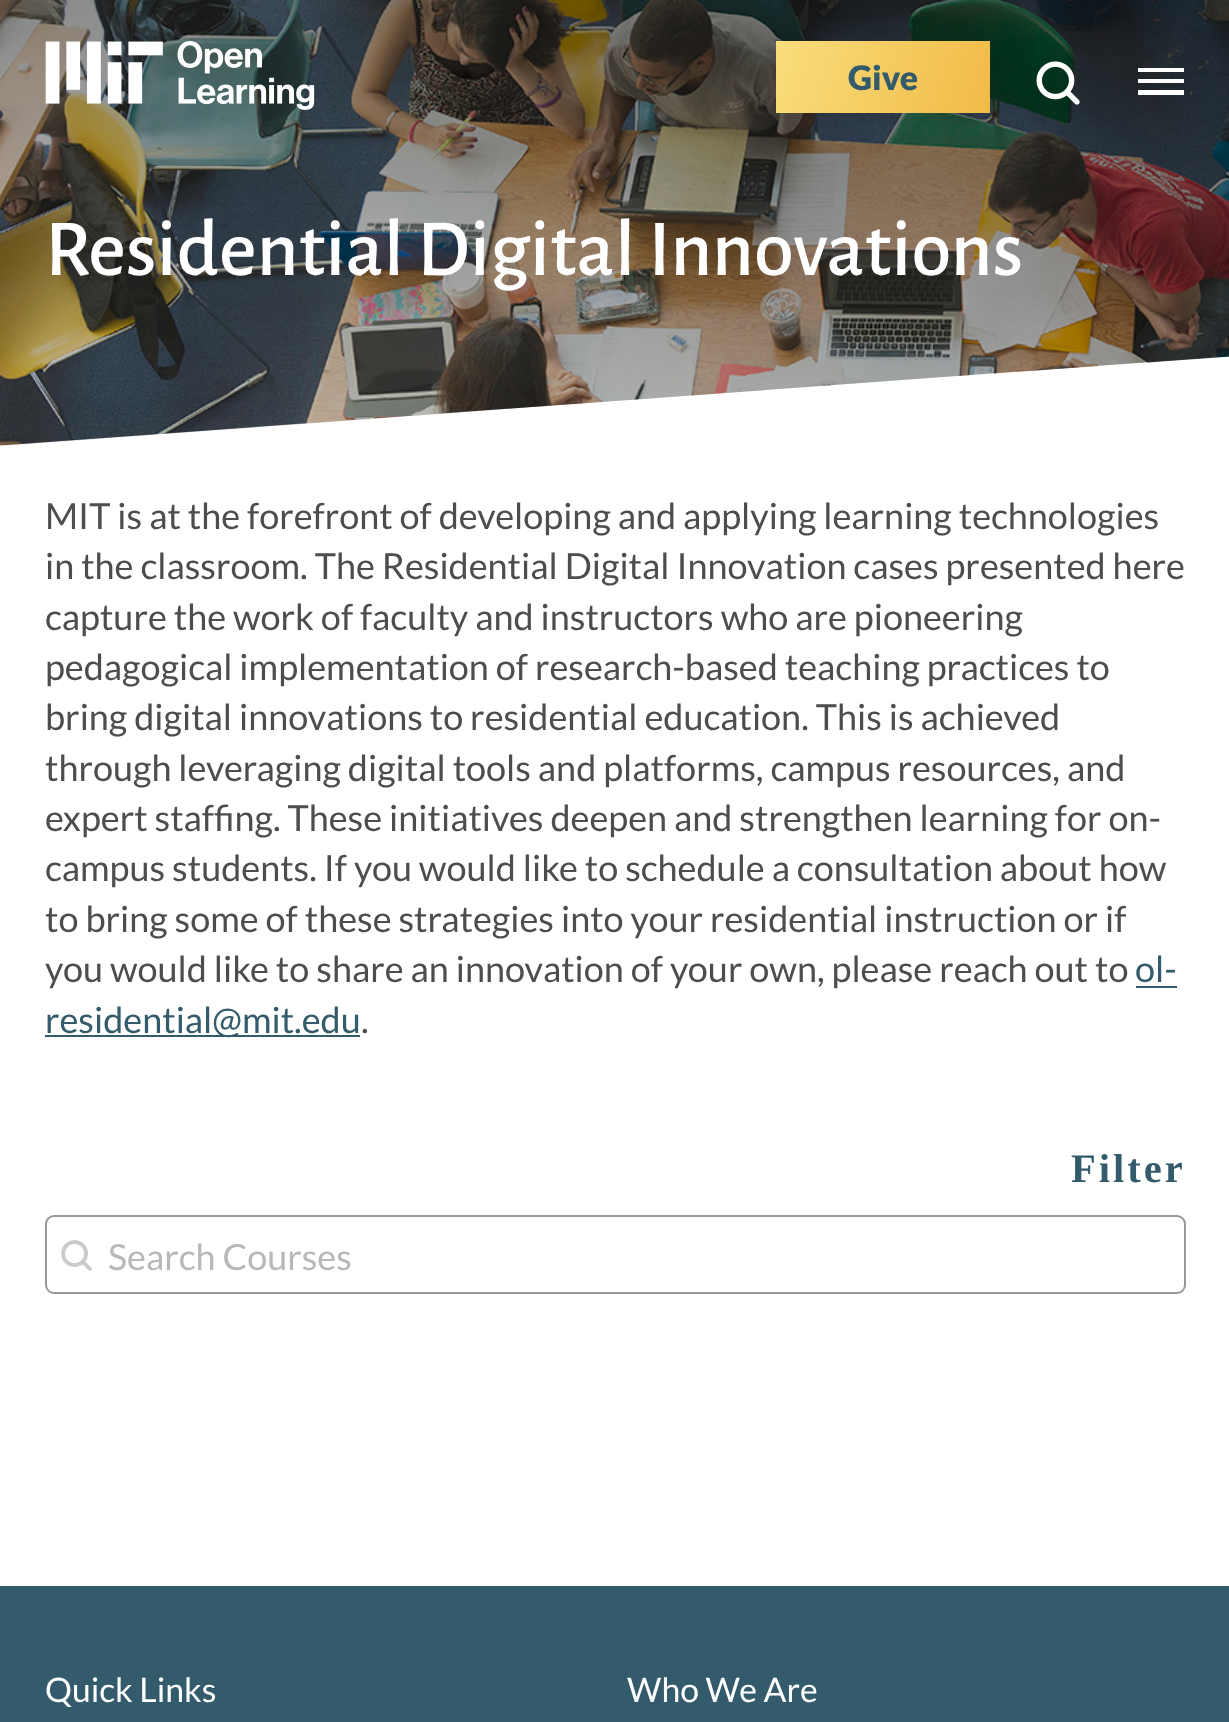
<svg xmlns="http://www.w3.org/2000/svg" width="1229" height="1722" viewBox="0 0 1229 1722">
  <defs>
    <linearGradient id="g1" gradientUnits="userSpaceOnUse" x1="551" y1="553" x2="680" y2="-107"><stop offset="0" stop-color="#000000" stop-opacity="0.19"/><stop offset="1" stop-color="#000000" stop-opacity="0.57"/></linearGradient>
    <linearGradient id="g2" gradientUnits="userSpaceOnUse" x1="776" y1="40" x2="990" y2="113"><stop offset="0" stop-color="#f9de7c"/><stop offset="1" stop-color="#f1ba46"/></linearGradient>
  </defs>
  <rect width="100%" height="100%" fill="#ffffff"/>
  <image x="0" y="0" width="1229" height="446" href="img3.png"/>
  <path d="M0 0V446L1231 356V0Z" fill="url(#g1)"/>
  <image x="45" y="41" width="270" height="69" href="img1.png"/>
  <rect x="776" y="41" width="214" height="72" fill="url(#g2)"/>
  <text x="848" y="90" font-family="Lato" font-size="33.75" font-weight="900" fill="#335b6b">Give</text>
  <image x="1036" y="61" width="44" height="44" href="img2.png"/>
  <path d="M1138 95H1184V90H1138ZM1138 83H1184V79H1138ZM1138 68V72H1184V68Z" fill="#ffffff"/>
  <text x="45" y="275" font-family="Alegreya Sans" font-size="81" font-weight="500" fill="#ffffff">Residential Digital Innovations</text>
  <text x="45" y="529" font-family="Lato" font-size="36" fill="#4d4d4d">MIT is at the forefront of developing and applying learning technologies</text>
  <text x="45" y="579" font-family="Lato" font-size="36" fill="#4d4d4d">in the classroom. The Residential Digital Innovation cases presented here</text>
  <text x="45" y="630" font-family="Lato" font-size="36" fill="#4d4d4d">capture the work of faculty and instructors who are pioneering</text>
  <text x="45" y="680" font-family="Lato" font-size="36" fill="#4d4d4d">pedagogical implementation of research-based teaching practices to</text>
  <text x="45" y="730" font-family="Lato" font-size="36" fill="#4d4d4d">bring digital innovations to residential education. This is achieved</text>
  <text x="45" y="781" font-family="Lato" font-size="36" fill="#4d4d4d">through leveraging digital tools and platforms, campus resources, and</text>
  <text x="45" y="831" font-family="Lato" font-size="36" fill="#4d4d4d">expert staffing. These initiatives deepen and strengthen learning for on-</text>
  <text x="45" y="881" font-family="Lato" font-size="36" fill="#4d4d4d">campus students. If you would like to schedule a consultation about how</text>
  <text x="45" y="932" font-family="Lato" font-size="36" fill="#4d4d4d">to bring some of these strategies into your residential instruction or if</text>
  <text x="45" y="982" font-family="Lato" font-size="36" fill="#4d4d4d">you would like to share an innovation of your own, please reach out to</text>
  <text x="1135" y="982" font-family="Lato" font-size="36" fill="#335b6b">ol-</text>
  <rect x="1136" y="986" width="41" height="2" fill="#335b6b"/>
  <rect x="45" y="1035" width="315" height="2" fill="#335b6b"/>
  <text x="45" y="1033" font-family="Lato" font-size="36" fill="#335b6b">residential@mit.edu</text>
  <text x="361" y="1033" font-family="Lato" font-size="36" fill="#4d4d4d">.</text>
  <text x="1071" y="1182" font-family="Liberation Serif" font-size="40.5" font-weight="bold" letter-spacing="3" fill="#335b6b">Filter</text>
  <image x="61" y="1240" width="31" height="31" href="img4.png"/>
  <rect x="46" y="1216" width="1139" height="77" rx="8" fill="none" stroke="#979797" stroke-width="2"/>
  <text x="108" y="1270" font-family="Lato" font-size="36" fill="#b8b8b8">Search Courses</text>
  <rect x="0" y="1586" width="1229" height="136" fill="#335b6b"/>
  <text x="45" y="1702" font-family="Lato" font-size="33.75" fill="#ffffff">Quick Links</text>
  <text x="627" y="1702" font-family="Lato" font-size="33.75" fill="#ffffff">Who We Are</text>
</svg>
